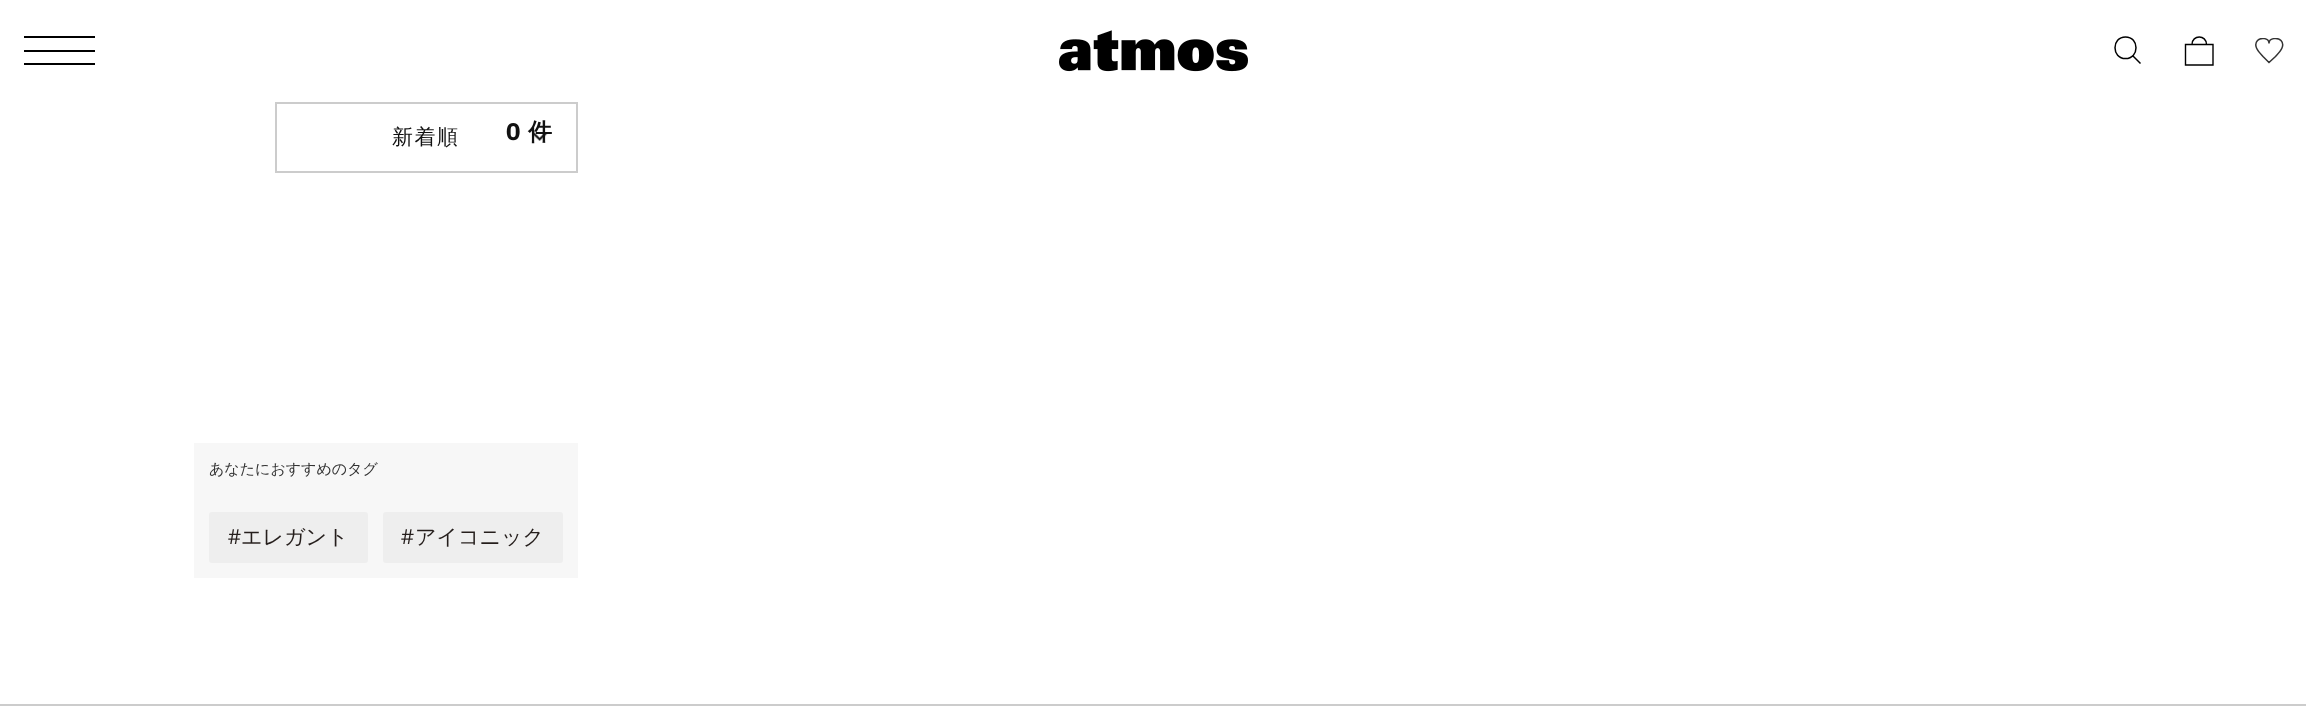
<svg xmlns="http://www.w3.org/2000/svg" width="2306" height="717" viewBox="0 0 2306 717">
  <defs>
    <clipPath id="clip1"><rect x="2255" y="38" width="30" height="27"/></clipPath>
  </defs>
  <rect width="100%" height="100%" fill="#ffffff"/>
  <rect x="24" y="36" width="71" height="2" fill="#000000"/>
  <rect x="24" y="50" width="71" height="2" fill="#000000"/>
  <rect x="24" y="63" width="71" height="2" fill="#000000"/>
  <image x="1059" y="30" width="189" height="42" href="img1.png"/>
  <path d="M2125.5 58.5C2139.5 58.5 2139.5 37 2125.5 37C2111.5 37 2111.5 58.5 2125.5 58.5ZM2132.5 55.5L2140.5 63.5" fill="none" stroke="#000000" stroke-width="1.5"/>
  <path d="M2213 44.5H2185.5V65H2213ZM2192 44.5C2192 34.5 2206.5 34.5 2206.5 44.5" fill="none" stroke="#000000" stroke-width="1.4"/>
  <g clip-path="url(#clip1)">
    <path d="M2269 62.5L2275.5 56.5C2279 52.5 2286 46 2281 40.5C2278 37.5 2269 37.5 2269 43.5C2269 37.5 2260.5 37.5 2257.5 40.5C2252.5 46 2259.5 52.5 2263 56.5Z" fill="none" stroke="#333333" stroke-width="1.5" stroke-linecap="round"/>
  </g>
  <rect x="276" y="103" width="301" height="69" fill="none" stroke="#cccccc" stroke-width="2"/>
  <text x="528" y="140" font-family="WenQuanYi Zen Hei" font-size="24" font-weight="bold" letter-spacing="1" fill="#111111">件</text>
  <image x="532" y="132" width="16" height="9" href="img2.png"/>
  <text x="392" y="144" font-family="WenQuanYi Zen Hei" font-size="21" font-weight="500" letter-spacing="1.5" fill="#111111">新着順</text>
  <text x="506" y="140" font-family="IBM Plex Sans" font-size="24" font-weight="bold" letter-spacing="1" fill="#111111">0</text>
  <rect x="194" y="443" width="384" height="135" fill="#f7f7f7"/>
  <text x="209" y="474" font-family="WenQuanYi Zen Hei" font-size="15" font-weight="500" fill="#333333">あなたにおすすめのタグ</text>
  <rect x="209" y="512" width="159" height="51" rx="3" fill="#eeeeee"/>
  <text x="227" y="544" font-family="IBM Plex Sans" font-size="21" fill="#251e1c">#</text>
  <text x="241" y="544" font-family="WenQuanYi Zen Hei" font-size="21" font-weight="500" fill="#251e1c">エレガント</text>
  <rect x="383" y="512" width="180" height="51" rx="3" fill="#eeeeee"/>
  <text x="400" y="544" font-family="IBM Plex Sans" font-size="21" fill="#251e1c">#</text>
  <text x="415" y="544" font-family="WenQuanYi Zen Hei" font-size="21" font-weight="500" fill="#251e1c">アイコニック</text>
  <rect x="0" y="704" width="2306" height="2" fill="#cccccc"/>
</svg>
